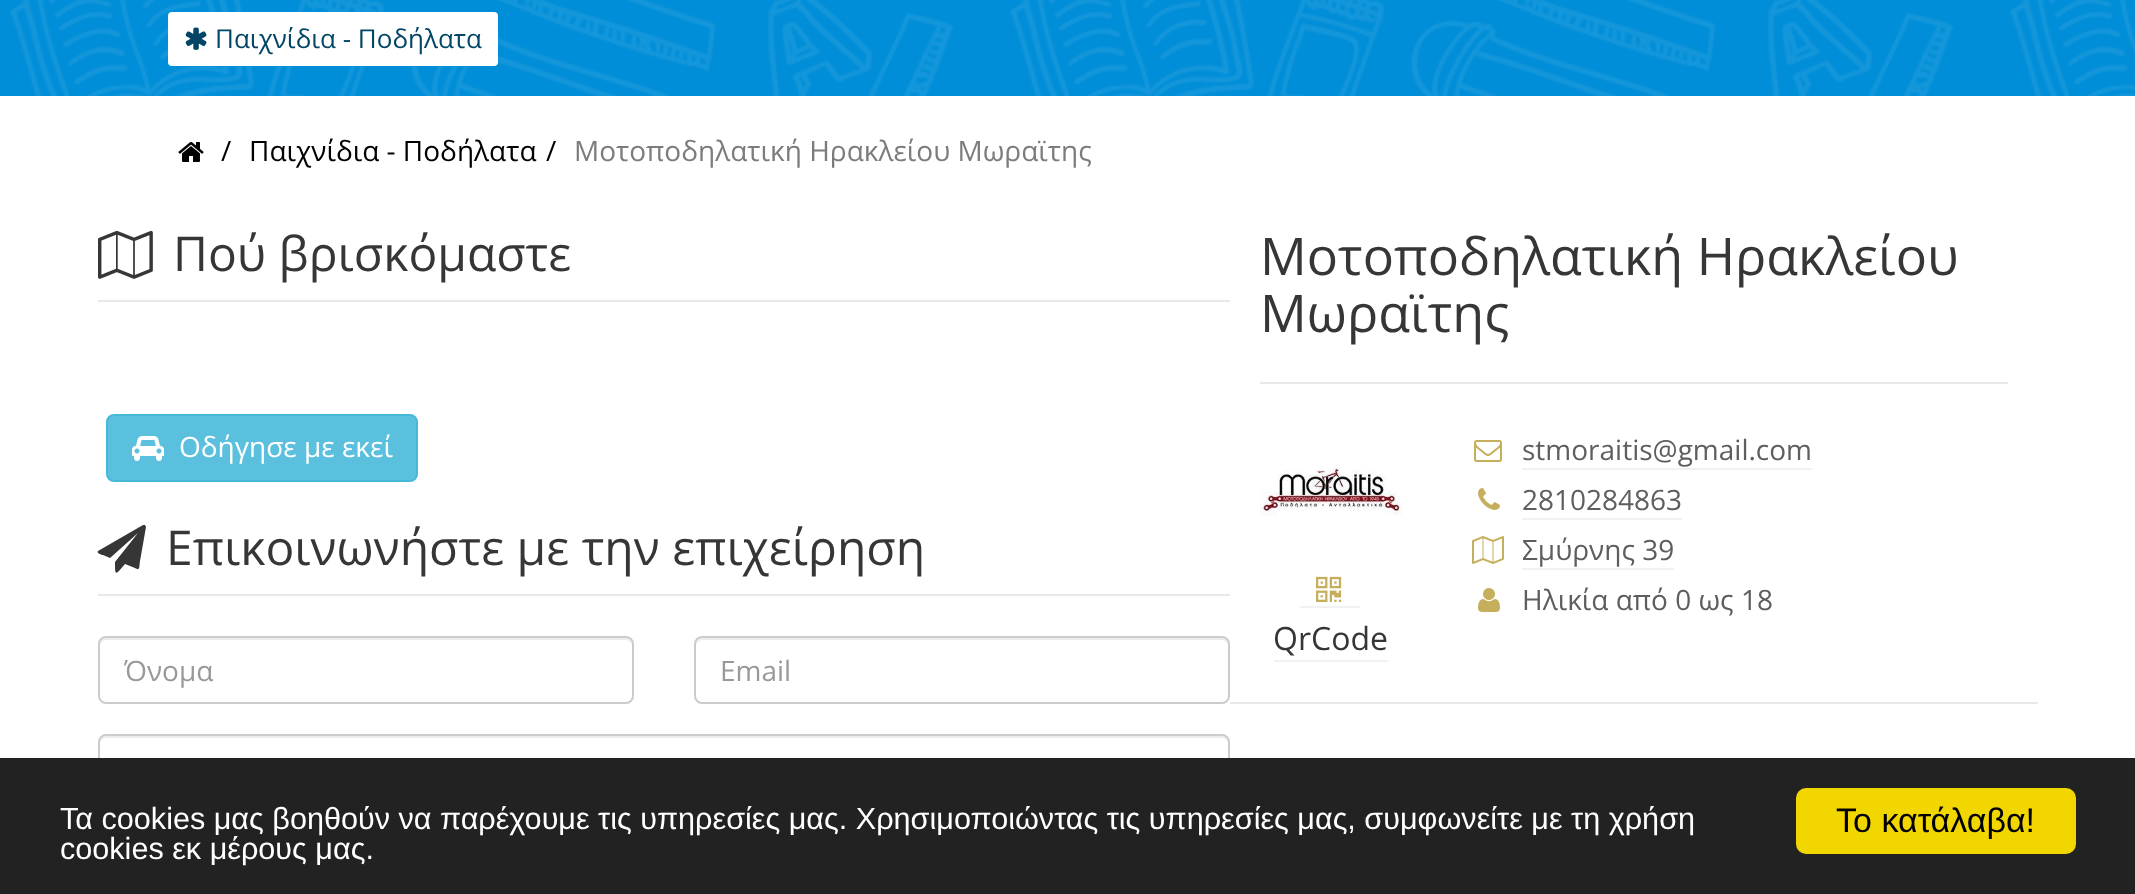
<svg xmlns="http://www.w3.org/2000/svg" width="2135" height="894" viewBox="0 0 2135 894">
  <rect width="100%" height="100%" fill="#ffffff"/>
  <rect x="0" y="0" width="2135" height="96" fill="#008ed8"/>
  <image x="10" y="0" width="2125" height="96" href="img1.png"/>
  <rect x="168" y="12" width="330" height="54" rx="4" fill="#ffffff"/>
  <image x="185" y="27" width="22" height="23" href="img2.png"/>
  <text x="215" y="48" font-family="Open Sans" font-size="26" fill="#034566">Παιχνίδια - Ποδήλατα</text>
  <image x="178" y="142" width="26" height="20" href="img3.png"/>
  <text x="221" y="161" font-family="Open Sans" font-size="28" fill="#000000">/</text>
  <text x="249" y="161" font-family="Open Sans" font-size="28" fill="#000000">Παιχνίδια - Ποδήλατα</text>
  <text x="546" y="161" font-family="Open Sans" font-size="28" fill="#000000">/</text>
  <text x="574" y="161" font-family="Open Sans" font-size="28" fill="#7c7c7c">Μοτοποδηλατική Ηρακλείου Μωραϊτης</text>
  <rect x="98" y="300" width="1132" height="2" fill="#e9e9e9"/>
  <image x="98" y="230" width="55" height="49" href="img4.png"/>
  <text x="173" y="271" font-family="Open Sans" font-size="48" fill="#363636">Πού βρισκόμαστε</text>
  <rect x="107" y="415" width="310" height="66" rx="7" fill="#5bc0de" stroke="#46b8da" stroke-width="2"/>
  <image x="132" y="436" width="32" height="25" href="img5.png"/>
  <text x="179" y="457" font-family="Open Sans" font-size="28" fill="#ffffff">Οδήγησε με εκεί</text>
  <rect x="98" y="594" width="1132" height="2" fill="#e9e9e9"/>
  <path d="M145 525L146 527L140 561C139 568 140 571 135 568L125 564C115 576 115 576 115 562L138 533L110 558L103 555C102 555 96 553 98 551L143 525Z" fill="#363636"/>
  <text x="166" y="565" font-family="Open Sans" font-size="48" fill="#363636">Επικοινωνήστε με την επιχείρηση</text>
  <path d="M106 640H626C629 640 632 643 632 646V644C632 641 629 638 626 638H106C103 638 100 641 100 644V646C100 643 103 640 106 640Z" fill="#ececec"/>
  <rect x="99" y="637" width="534" height="66" rx="7" fill="none" stroke="#cccccc" stroke-width="2"/>
  <text x="124" y="681" font-family="Open Sans" font-size="28" fill="#999999">Όνομα</text>
  <path d="M702 640H1222C1225 640 1228 643 1228 646V644C1228 641 1225 638 1222 638H702C699 638 696 641 696 644V646C696 643 699 640 702 640Z" fill="#ececec"/>
  <rect x="695" y="637" width="534" height="66" rx="7" fill="none" stroke="#cccccc" stroke-width="2"/>
  <text x="720" y="681" font-family="Open Sans" font-size="28" fill="#999999">Email</text>
  <path d="M106 738H1222C1225 738 1228 741 1228 744V742C1228 739 1225 736 1222 736H106C103 736 100 739 100 742V744C100 741 103 738 106 738Z" fill="#ececec"/>
  <rect x="99" y="735" width="1130" height="146" rx="7" fill="none" stroke="#cccccc" stroke-width="2"/>
  <rect x="1260" y="382" width="748" height="2" fill="#e9e9e9"/>
  <text x="1260" y="275" font-family="Open Sans" font-size="52" fill="#363636">Μοτοποδηλατική Ηρακλείου</text>
  <text x="1260" y="332" font-family="Open Sans" font-size="52" fill="#363636">Μωραϊτης</text>
  <rect x="1230" y="702" width="808" height="2" fill="#e9e9e9"/>
  <image x="1474" y="440" width="28" height="22" href="img6.png"/>
  <text x="1522" y="460" font-family="Open Sans" font-size="28" fill="#5e5e5e">stmoraitis@gmail.com</text>
  <rect x="1522" y="468" width="290" height="2" fill="#f1f1f1"/>
  <image x="1478" y="488" width="22" height="22" href="img7.png"/>
  <text x="1522" y="510" font-family="Open Sans" font-size="28" fill="#5e5e5e">2810284863</text>
  <rect x="1522" y="518" width="160" height="2" fill="#f1f1f1"/>
  <image x="1472" y="536" width="32" height="28" href="img8.png"/>
  <text x="1522" y="560" font-family="Open Sans" font-size="28" fill="#5e5e5e">Σμύρνης 39</text>
  <rect x="1522" y="568" width="152" height="2" fill="#f1f1f1"/>
  <image x="1478" y="588" width="22" height="24" href="img9.png"/>
  <text x="1522" y="610" font-family="Open Sans" font-size="28" fill="#5e5e5e">Ηλικία από 0 ως 18</text>
  <image x="1260" y="465" width="142" height="51" href="img10.png"/>
  <rect x="1300" y="606" width="60" height="2" fill="#f1f1f1"/>
  <rect x="1274" y="660" width="114" height="2" fill="#f1f1f1"/>
  <image x="1316" y="576" width="26" height="26" href="img11.png"/>
  <text x="1273" y="650" font-family="Open Sans" font-size="32" fill="#363636">QrCode</text>
  <rect x="0" y="758" width="2135" height="136" fill="#222222"/>
  <text x="60" y="829" font-family="Liberation Sans" font-size="30.6" fill="#ffffff">Τα cookies μας βοηθούν να παρέχουμε τις υπηρεσίες μας. Χρησιμοποιώντας τις υπηρεσίες μας, συμφωνείτε με τη χρήση</text>
  <text x="60" y="859" font-family="Liberation Sans" font-size="30.6" fill="#ffffff">cookies εκ μέρους μας.</text>
  <rect x="1796" y="788" width="280" height="66" rx="10" fill="#f1d600"/>
  <text x="1836" y="832" font-family="Liberation Sans" font-size="34" fill="#000000">Το κατάλαβα!</text>
</svg>
